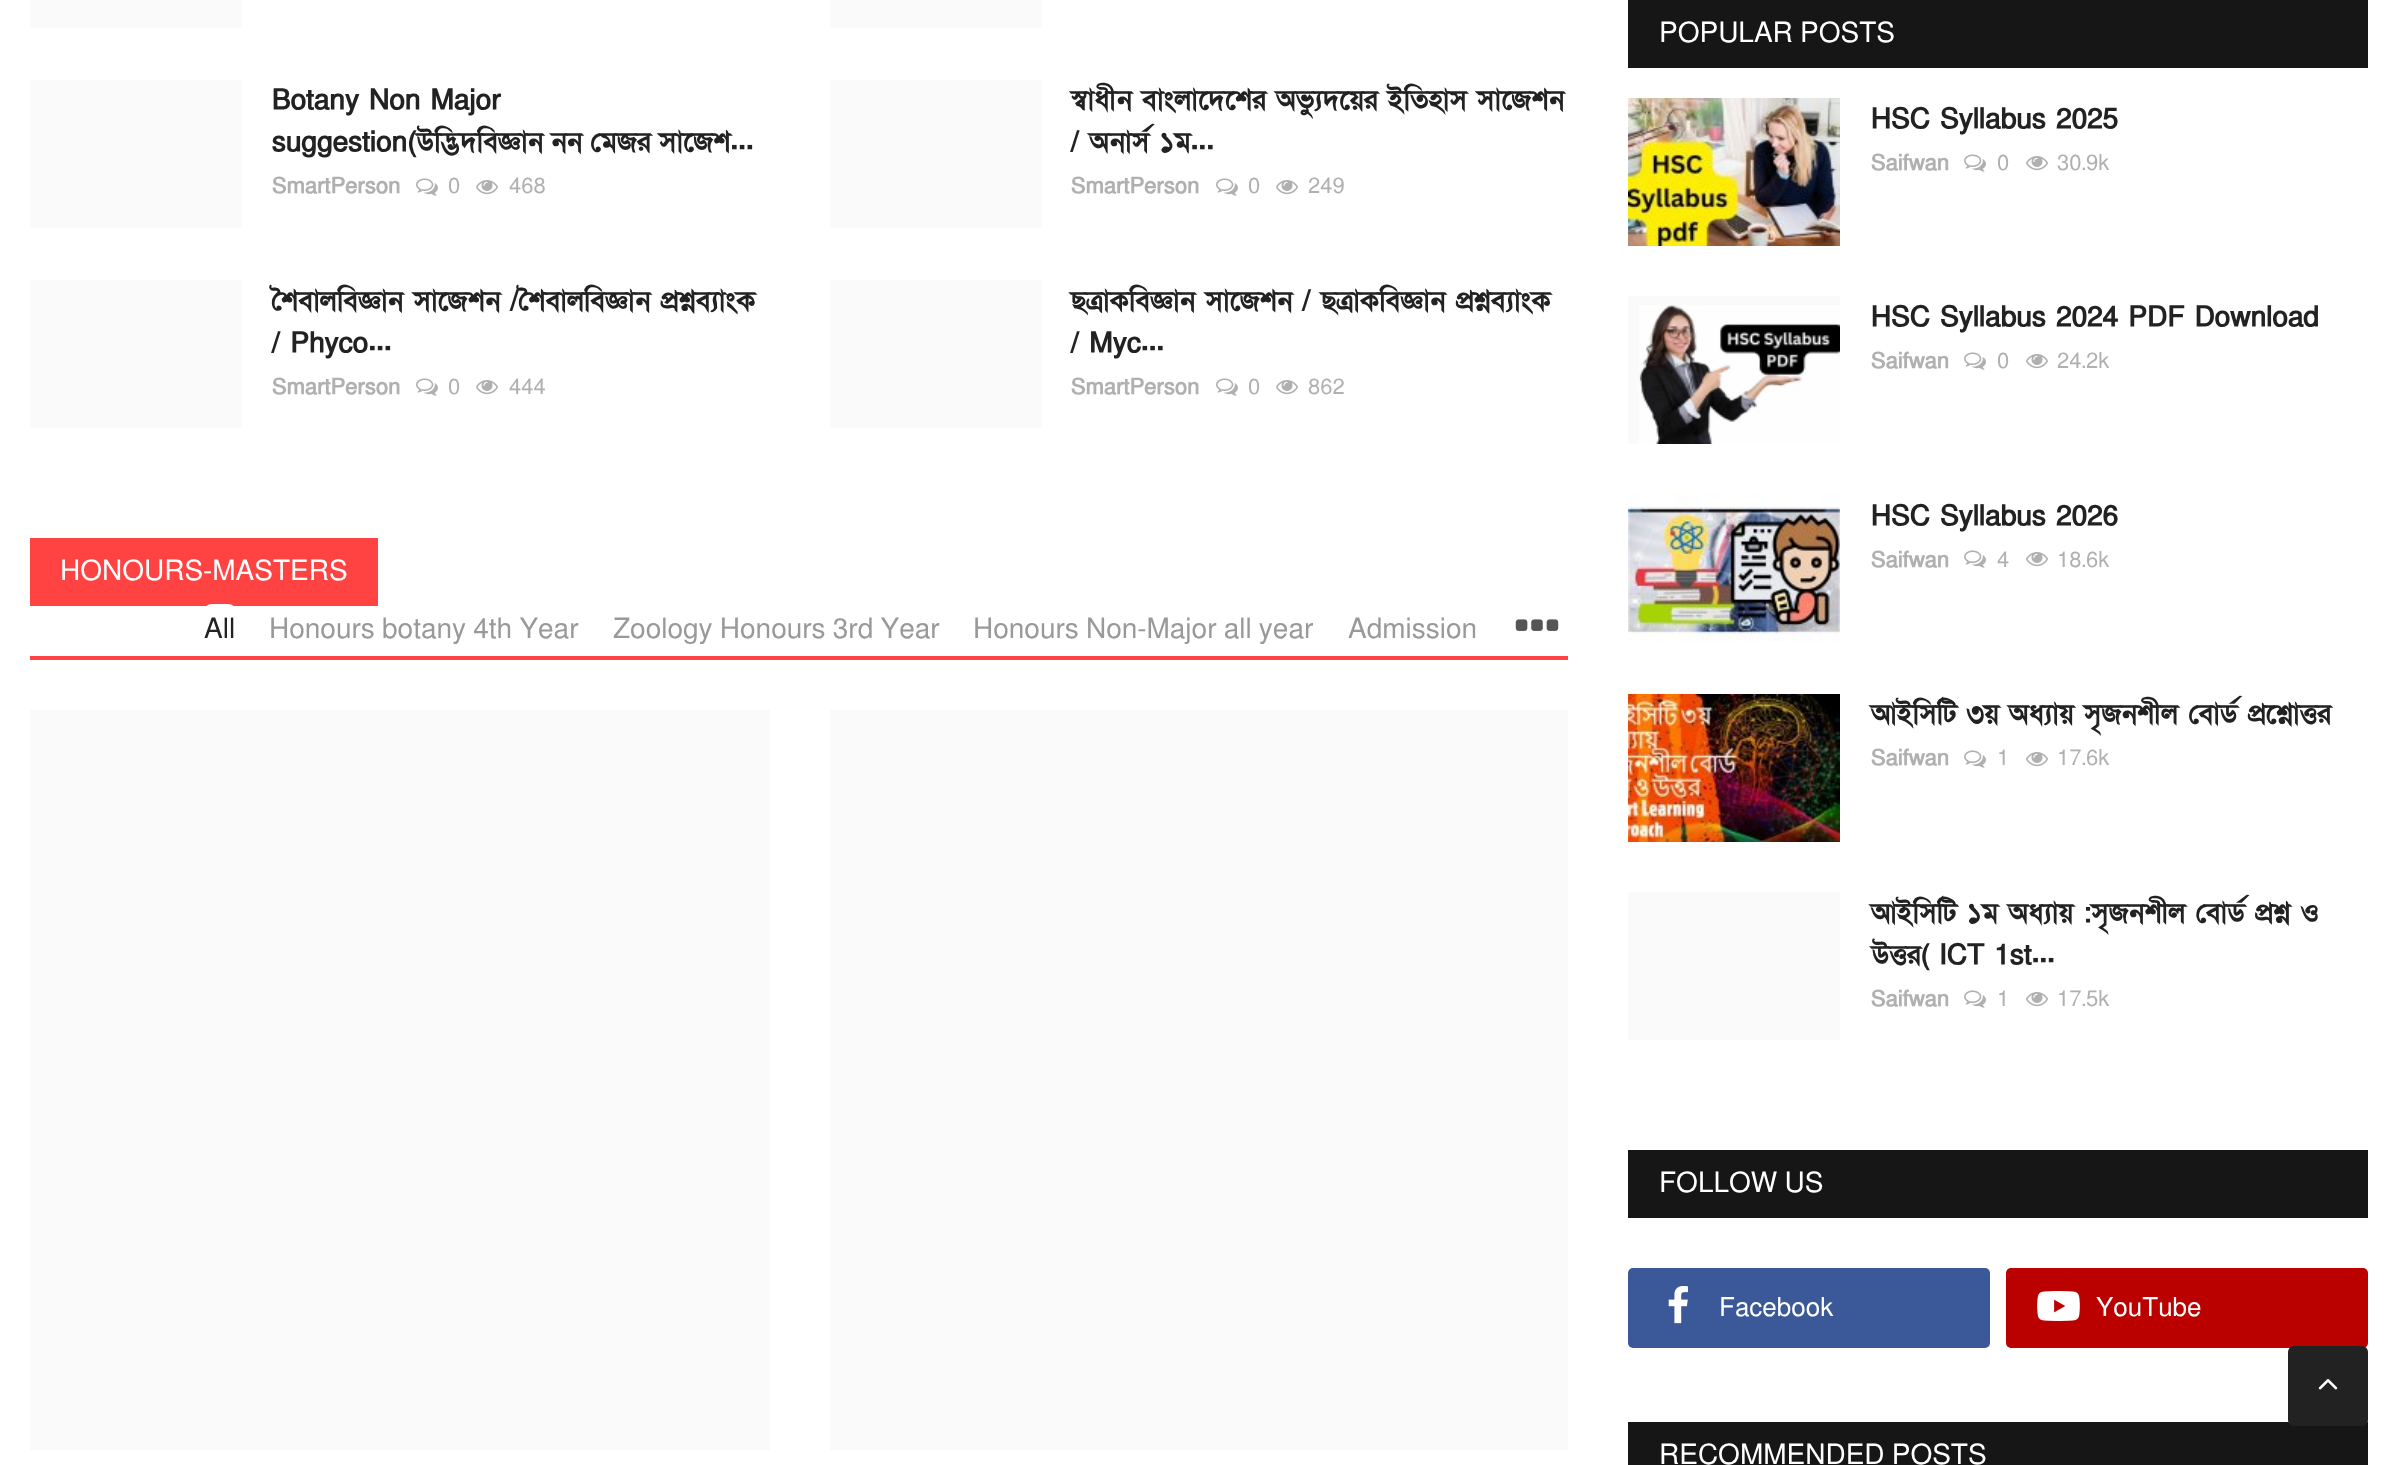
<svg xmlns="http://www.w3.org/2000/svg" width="2398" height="1465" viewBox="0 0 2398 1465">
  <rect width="100%" height="100%" fill="#ffffff"/>
  <rect x="30" y="0" width="212" height="28" fill="#fafafa"/>
  <rect x="830" y="0" width="212" height="28" fill="#fafafa"/>
  <rect x="30" y="80" width="212" height="148" fill="#fafafa"/>
  <text x="272" y="109" font-family="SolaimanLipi" font-size="28" font-weight="bold" fill="#222222">Botany Non Major</text>
  <text x="272" y="151" word-spacing="-2" font-family="SolaimanLipi" font-size="28" font-weight="bold" fill="#222222">suggestion(উদ্ভিদবিজ্ঞান নন মেজর সাজেশ...</text>
  <text x="272" y="193" font-family="SolaimanLipi" font-size="22" font-weight="bold" fill="#b0b0b0">SmartPerson</text>
  <image x="416" y="178" width="22" height="18" href="img1.png"/>
  <text x="448" y="193" font-family="SolaimanLipi" font-size="22" fill="#b0b0b0">0</text>
  <image x="476" y="180" width="22" height="15" href="img2.png"/>
  <text x="509" y="193" font-family="SolaimanLipi" font-size="22" fill="#b0b0b0">468</text>
  <rect x="830" y="80" width="212" height="148" fill="#fafafa"/>
  <text x="1071" y="109" font-family="SolaimanLipi" font-size="28" font-weight="bold" fill="#222222">স্বাধীন বাংলাদেশের অভ্যুদয়ের ইতিহাস সাজেশন</text>
  <text x="1071" y="151" font-family="SolaimanLipi" font-size="28" font-weight="bold" fill="#222222">/ অনার্স ১ম...</text>
  <text x="1071" y="193" font-family="SolaimanLipi" font-size="22" font-weight="bold" fill="#b0b0b0">SmartPerson</text>
  <image x="1216" y="178" width="22" height="18" href="img1.png"/>
  <text x="1248" y="193" font-family="SolaimanLipi" font-size="22" fill="#b0b0b0">0</text>
  <image x="1276" y="180" width="22" height="15" href="img2.png"/>
  <text x="1308" y="193" font-family="SolaimanLipi" font-size="22" fill="#b0b0b0">249</text>
  <rect x="30" y="280" width="212" height="148" fill="#fafafa"/>
  <text x="272" y="310" font-family="SolaimanLipi" font-size="28" font-weight="bold" fill="#222222">শৈবালবিজ্ঞান সাজেশন /শৈবালবিজ্ঞান প্রশ্নব্যাংক</text>
  <text x="272" y="352" font-family="SolaimanLipi" font-size="28" font-weight="bold" fill="#222222">/ Phyco...</text>
  <text x="272" y="394" font-family="SolaimanLipi" font-size="22" font-weight="bold" fill="#b0b0b0">SmartPerson</text>
  <image x="416" y="378" width="22" height="18" href="img1.png"/>
  <text x="448" y="394" font-family="SolaimanLipi" font-size="22" fill="#b0b0b0">0</text>
  <image x="476" y="380" width="22" height="15" href="img2.png"/>
  <text x="509" y="394" font-family="SolaimanLipi" font-size="22" fill="#b0b0b0">444</text>
  <rect x="830" y="280" width="212" height="148" fill="#fafafa"/>
  <text x="1071" y="310" font-family="SolaimanLipi" font-size="28" font-weight="bold" fill="#222222">ছত্রাকবিজ্ঞান সাজেশন / ছত্রাকবিজ্ঞান প্রশ্নব্যাংক</text>
  <text x="1071" y="352" font-family="SolaimanLipi" font-size="28" font-weight="bold" fill="#222222">/ Myc...</text>
  <text x="1071" y="394" font-family="SolaimanLipi" font-size="22" font-weight="bold" fill="#b0b0b0">SmartPerson</text>
  <image x="1216" y="378" width="22" height="18" href="img1.png"/>
  <text x="1248" y="394" font-family="SolaimanLipi" font-size="22" fill="#b0b0b0">0</text>
  <image x="1276" y="380" width="22" height="15" href="img2.png"/>
  <text x="1308" y="394" font-family="SolaimanLipi" font-size="22" fill="#b0b0b0">862</text>
  <rect x="30" y="656" width="1538" height="4" fill="#ff4343"/>
  <rect x="30" y="538" width="348" height="68" fill="#ff4343"/>
  <text x="60" y="580" font-family="SolaimanLipi" font-size="28" fill="#ffffff">HONOURS-MASTERS</text>
  <path d="M212 604H228C232.5 604 236 607.5 236 612V656H204V612C204 607.5 207.5 604 212 604Z" fill="#ffffff"/>
  <text x="204" y="638" font-family="SolaimanLipi" font-size="28" fill="#222222">All</text>
  <text x="269" y="638" font-family="SolaimanLipi" font-size="28" fill="#999999">Honours botany 4th Year</text>
  <text x="613" y="638" font-family="SolaimanLipi" font-size="28" fill="#999999">Zoology Honours 3rd Year</text>
  <text x="973" y="638" font-family="SolaimanLipi" font-size="28" fill="#999999">Honours Non-Major all year</text>
  <text x="1348" y="638" font-family="SolaimanLipi" font-size="28" fill="#999999">Admission</text>
  <image x="1515" y="619" width="44" height="12" href="img3.png"/>
  <rect x="30" y="710" width="740" height="740" fill="#fafafa"/>
  <rect x="830" y="710" width="738" height="740" fill="#fafafa"/>
  <rect x="1628" y="0" width="740" height="68" fill="#161616"/>
  <text x="1659" y="42" font-family="SolaimanLipi" font-size="28" fill="#ffffff">POPULAR POSTS</text>
  <image x="1628" y="98" width="212" height="148" href="img4.png"/>
  <text x="1871" y="128" font-family="SolaimanLipi" font-size="28" font-weight="bold" fill="#222222">HSC Syllabus 2025</text>
  <text x="1871" y="170" font-family="SolaimanLipi" font-size="22" font-weight="bold" fill="#b0b0b0">Saifwan</text>
  <image x="1964" y="154" width="22" height="18" href="img1.png"/>
  <text x="1997" y="170" font-family="SolaimanLipi" font-size="22" fill="#b0b0b0">0</text>
  <image x="2026" y="156" width="22" height="15" href="img2.png"/>
  <text x="2057" y="170" font-family="SolaimanLipi" font-size="22" fill="#b0b0b0">30.9k</text>
  <rect x="1628" y="296" width="212" height="148" fill="#fafafa"/>
  <image x="1639" y="305" width="201" height="139" href="img5.png"/>
  <text x="1871" y="326" font-family="SolaimanLipi" font-size="28" font-weight="bold" fill="#222222">HSC Syllabus 2024 PDF Download</text>
  <text x="1871" y="368" font-family="SolaimanLipi" font-size="22" font-weight="bold" fill="#b0b0b0">Saifwan</text>
  <image x="1964" y="352" width="22" height="18" href="img1.png"/>
  <text x="1997" y="368" font-family="SolaimanLipi" font-size="22" fill="#b0b0b0">0</text>
  <image x="2026" y="354" width="22" height="15" href="img2.png"/>
  <text x="2057" y="368" font-family="SolaimanLipi" font-size="22" fill="#b0b0b0">24.2k</text>
  <image x="1628" y="494" width="212" height="150" href="img6.png"/>
  <text x="1871" y="525" font-family="SolaimanLipi" font-size="28" font-weight="bold" fill="#222222">HSC Syllabus 2026</text>
  <text x="1871" y="567" font-family="SolaimanLipi" font-size="22" font-weight="bold" fill="#b0b0b0">Saifwan</text>
  <image x="1964" y="550" width="22" height="18" href="img1.png"/>
  <text x="1997" y="567" font-family="SolaimanLipi" font-size="22" fill="#b0b0b0">4</text>
  <image x="2026" y="552" width="22" height="15" href="img2.png"/>
  <text x="2057" y="567" font-family="SolaimanLipi" font-size="22" fill="#b0b0b0">18.6k</text>
  <image x="1628" y="694" width="212" height="148" href="img7.png"/>
  <text x="1871" y="723" font-family="SolaimanLipi" font-size="28" font-weight="bold" fill="#222222">আইসিটি ৩য় অধ্যায় সৃজনশীল বোর্ড প্রশ্নোত্তর</text>
  <text x="1871" y="765" font-family="SolaimanLipi" font-size="22" font-weight="bold" fill="#b0b0b0">Saifwan</text>
  <image x="1964" y="750" width="22" height="18" href="img1.png"/>
  <text x="1997" y="765" font-family="SolaimanLipi" font-size="22" fill="#b0b0b0">1</text>
  <image x="2026" y="752" width="22" height="15" href="img2.png"/>
  <text x="2057" y="765" font-family="SolaimanLipi" font-size="22" fill="#b0b0b0">17.6k</text>
  <rect x="1628" y="892" width="212" height="148" fill="#fafafa"/>
  <text x="1871" y="922" font-family="SolaimanLipi" font-size="28" font-weight="bold" fill="#222222">আইসিটি ১ম অধ্যায় :সৃজনশীল বোর্ড প্রশ্ন ও</text>
  <text x="1871" y="964" font-family="SolaimanLipi" font-size="28" font-weight="bold" fill="#222222">উত্তর( ICT 1st...</text>
  <text x="1871" y="1006" font-family="SolaimanLipi" font-size="22" font-weight="bold" fill="#b0b0b0">Saifwan</text>
  <image x="1964" y="990" width="22" height="18" href="img1.png"/>
  <text x="1997" y="1006" font-family="SolaimanLipi" font-size="22" fill="#b0b0b0">1</text>
  <image x="2026" y="992" width="22" height="15" href="img2.png"/>
  <text x="2057" y="1006" font-family="SolaimanLipi" font-size="22" fill="#b0b0b0">17.5k</text>
  <rect x="1628" y="1150" width="740" height="68" fill="#161616"/>
  <text x="1659" y="1192" font-family="SolaimanLipi" font-size="28" fill="#ffffff">FOLLOW US</text>
  <rect x="1628" y="1268" width="362" height="80" rx="5" fill="#3b5998"/>
  <image x="1668" y="1286" width="20" height="38" href="img8.png"/>
  <text x="1719" y="1316" font-family="SolaimanLipi" font-size="26" fill="#ffffff">Facebook</text>
  <rect x="2006" y="1268" width="362" height="80" rx="5" fill="#bb0000"/>
  <image x="2037" y="1291" width="43" height="30" href="img9.png"/>
  <text x="2096" y="1316" font-family="SolaimanLipi" font-size="26" fill="#ffffff">YouTube</text>
  <rect x="1628" y="1422" width="740" height="43" fill="#161616"/>
  <text x="1659" y="1464" font-family="SolaimanLipi" font-size="28" fill="#ffffff">RECOMMENDED POSTS</text>
  <rect x="2288" y="1346" width="80" height="80" rx="6" fill="#222222"/>
  <image x="2318" y="1379" width="20" height="11" href="img10.png"/>
</svg>
